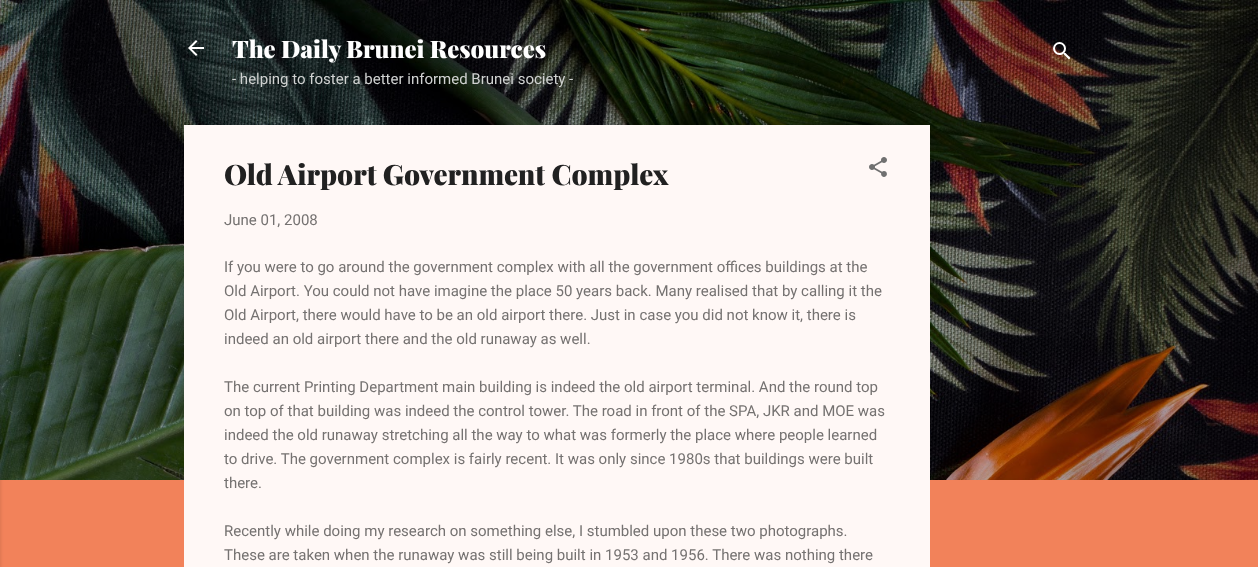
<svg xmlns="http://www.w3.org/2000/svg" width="1258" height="567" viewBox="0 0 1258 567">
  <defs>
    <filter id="blur1" x="-50%" y="-200%" width="200%" height="500%"><feGaussianBlur stdDeviation="1.5"/></filter>
  </defs>
  <rect width="100%" height="100%" fill="#f2825a"/>
  <image x="0" y="0" width="1258" height="480" href="img1.png"/>
  <rect x="-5" y="1" width="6" height="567" fill="#000000" fill-opacity="0.1" filter="url(#blur1)"/>
  <image x="188" y="40" width="16" height="16" href="img2.png"/>
  <text x="232" y="58" font-family="Playfair Display" font-size="24" font-weight="900" fill="#ffffff">The Daily Brunei Resources</text>
  <text x="232" y="84" font-family="Roboto" font-size="15" fill="#d0d2d1">- helping to foster a better informed Brunei society -</text>
  <image x="1053" y="42" width="18" height="18" href="img3.png"/>
  <rect x="184" y="125" width="746" height="442" fill="#fff8f6"/>
  <text x="224" y="185" font-family="Playfair Display" font-size="28" font-weight="900" fill="#212121">Old Airport Government Complex</text>
  <image x="869" y="157" width="18" height="20" href="img4.png"/>
  <text x="224" y="225" font-family="Roboto" font-size="15" fill="#757271">June 01, 2008</text>
  <text x="224" y="272" font-family="Roboto" font-size="15" fill="#757271">If you were to go around the government complex with all the government offices buildings at the</text>
  <text x="224" y="296" font-family="Roboto" font-size="15" fill="#757271">Old Airport. You could not have imagine the place 50 years back. Many realised that by calling it the</text>
  <text x="224" y="320" font-family="Roboto" font-size="15" fill="#757271">Old Airport, there would have to be an old airport there. Just in case you did not know it, there is</text>
  <text x="224" y="344" font-family="Roboto" font-size="15" fill="#757271">indeed an old airport there and the old runaway as well.</text>
  <text x="224" y="392" font-family="Roboto" font-size="15" fill="#757271">The current Printing Department main building is indeed the old airport terminal. And the round top</text>
  <text x="224" y="416" font-family="Roboto" font-size="15" fill="#757271">on top of that building was indeed the control tower. The road in front of the SPA, JKR and MOE was</text>
  <text x="224" y="440" font-family="Roboto" font-size="15" fill="#757271">indeed the old runaway stretching all the way to what was formerly the place where people learned</text>
  <text x="224" y="464" font-family="Roboto" font-size="15" fill="#757271">to drive. The government complex is fairly recent. It was only since 1980s that buildings were built</text>
  <text x="224" y="488" font-family="Roboto" font-size="15" fill="#757271">there.</text>
  <text x="224" y="536" font-family="Roboto" font-size="15" fill="#757271">Recently while doing my research on something else, I stumbled upon these two photographs.</text>
  <text x="224" y="560" font-family="Roboto" font-size="15" fill="#757271">These are taken when the runaway was still being built in 1953 and 1956. There was nothing there</text>
</svg>
